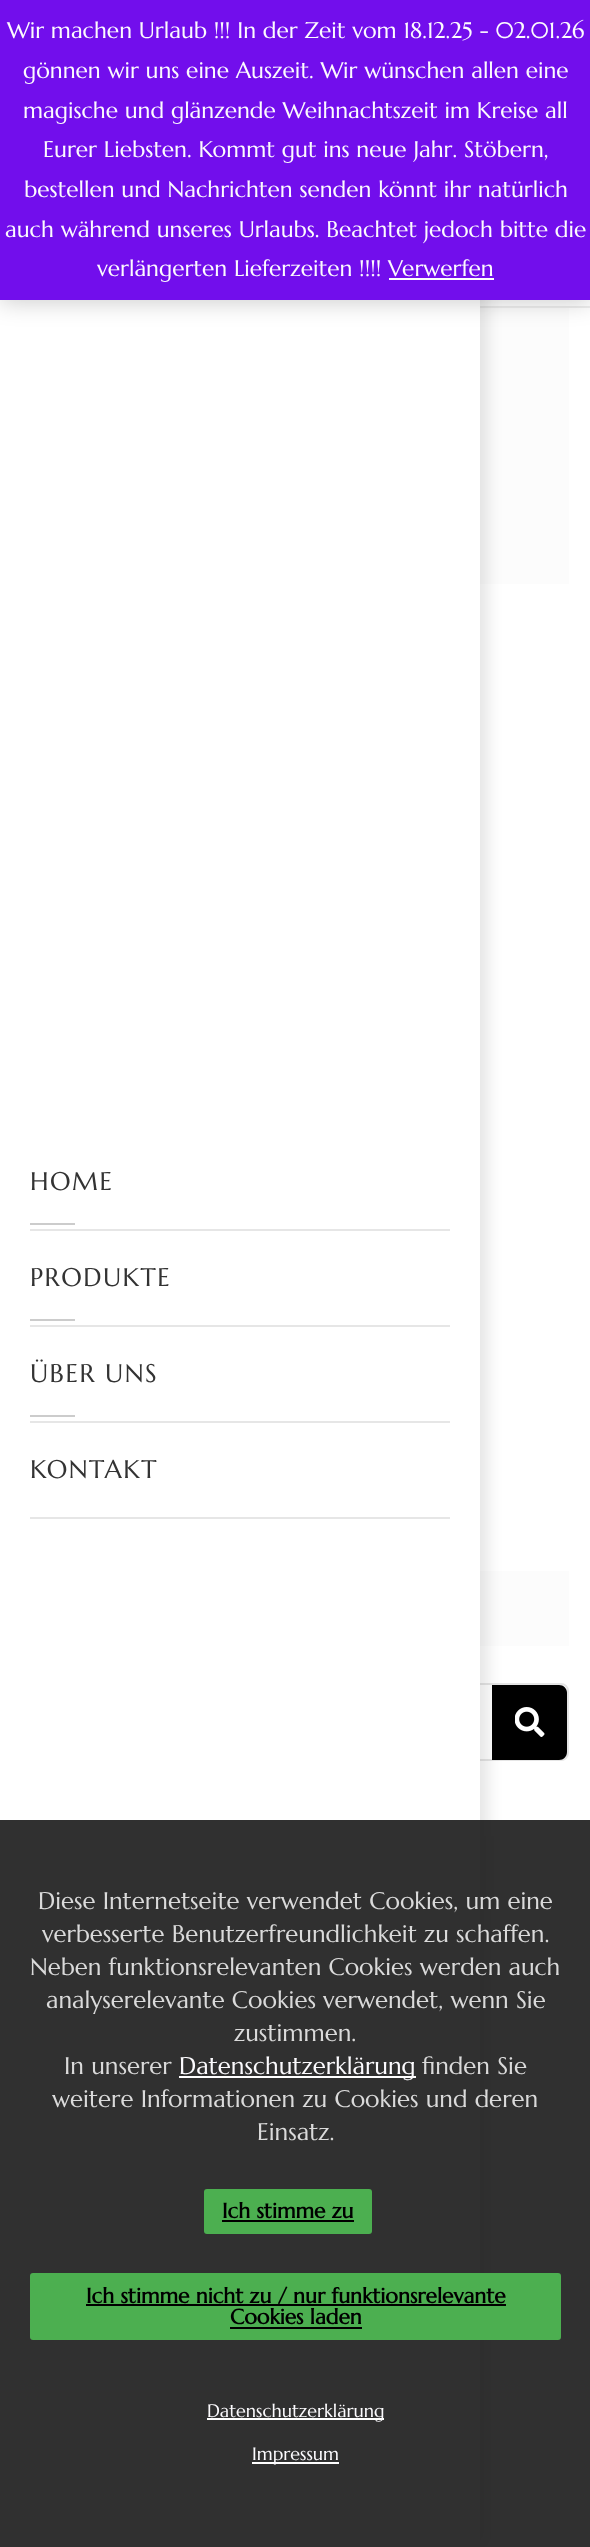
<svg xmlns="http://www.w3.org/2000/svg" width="590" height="2547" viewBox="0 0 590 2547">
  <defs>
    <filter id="blur1" x="-50%" y="-200%" width="200%" height="500%"><feGaussianBlur stdDeviation="7.5"/></filter>
    <filter id="blur2" x="-50%" y="-200%" width="200%" height="500%"><feGaussianBlur stdDeviation="11.5"/></filter>
  </defs>
  <rect width="100%" height="100%" fill="#ffffff"/>
  <rect x="480" y="308" width="89" height="276" fill="#fcfcfc"/>
  <rect x="480" y="306" width="110" height="2" fill="#ededed"/>
  <rect x="24" y="1684" width="544" height="76" rx="7" fill="none" stroke="#e5e5e5" stroke-width="2"/>
  <rect x="480" y="1571" width="89" height="75" fill="#fcfcfc"/>
  <path d="M492 1685H559C563.5 1685 567 1688.5 567 1693V1752C567 1756.5 563.5 1760 559 1760H492Z" fill="#000000"/>
  <rect x="480" y="1836" width="89" height="74" fill="#fcfcfc"/>
  <rect x="8" y="0" width="480" height="2547" fill="#000000" fill-opacity="0.1" filter="url(#blur1)"/>
  <rect x="0" y="300" width="480" height="2247" fill="#ffffff"/>
  <rect x="0" y="2" width="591" height="300" fill="#000000" fill-opacity="0.2" filter="url(#blur2)"/>
  <rect x="0" y="0" width="590" height="300" fill="#720eec"/>
  <text x="7" y="38" font-family="Marcellus" font-size="22.65" fill="#fcfbfe">Wir machen Urlaub !!! In der Zeit vom 18.12.25 - 02.01.26</text>
  <text x="23" y="78" font-family="Marcellus" font-size="22.65" fill="#fcfbfe">gönnen wir uns eine Auszeit. Wir wünschen allen eine</text>
  <text x="23" y="118" font-family="Marcellus" font-size="22.65" fill="#fcfbfe">magische und glänzende Weihnachtszeit im Kreise all</text>
  <text x="43" y="157" font-family="Marcellus" font-size="22.65" fill="#fcfbfe">Eurer Liebsten. Kommt gut ins neue Jahr.</text>
  <text x="464" y="157" font-family="Marcellus" font-size="22.65" fill="#fcfbfe">Stöbern,</text>
  <text x="24" y="197" font-family="Marcellus" font-size="22.65" fill="#fcfbfe">bestellen und Nachrichten senden könnt ihr natürlich</text>
  <text x="5" y="237" font-family="Marcellus" font-size="22.65" fill="#fcfbfe">auch während unseres Urlaubs. Beachtet jedoch bitte die</text>
  <text x="97" y="276" font-family="Marcellus" font-size="22.65" fill="#fcfbfe">verlängerten Lieferzeiten !!!! Verwerfen</text>
  <rect x="389" y="278" width="105" height="2" fill="#fcfbfe"/>
  <image x="515" y="1707" width="30" height="30" href="img1.png"/>
  <rect x="30" y="1229" width="420" height="2" fill="#e6e6e6"/>
  <text x="30" y="1190" font-family="Marcellus" font-size="25.5" letter-spacing="1.5" fill="#333333">HOME</text>
  <rect x="30" y="1223" width="45" height="2" fill="#cccccc"/>
  <rect x="30" y="1325" width="420" height="2" fill="#e6e6e6"/>
  <text x="30" y="1286" font-family="Marcellus" font-size="25.5" letter-spacing="1.5" fill="#333333">PRODUKTE</text>
  <rect x="30" y="1319" width="45" height="2" fill="#cccccc"/>
  <rect x="30" y="1421" width="420" height="2" fill="#e6e6e6"/>
  <text x="30" y="1382" font-family="Marcellus" font-size="25.5" letter-spacing="1.5" fill="#333333">ÜBER UNS</text>
  <rect x="30" y="1415" width="45" height="2" fill="#cccccc"/>
  <rect x="30" y="1517" width="420" height="2" fill="#e6e6e6"/>
  <text x="30" y="1478" font-family="Marcellus" font-size="25.5" letter-spacing="1.5" fill="#333333">KONTAKT</text>
  <rect x="0" y="1820" width="590" height="727" fill="#191919" fill-opacity="0.9"/>
  <text x="38" y="1909" font-family="Marcellus" font-size="24" fill="#dadada">Diese Internetseite verwendet Cookies, um eine</text>
  <text x="42" y="1942" font-family="Marcellus" font-size="24" fill="#dadada">verbesserte Benutzerfreundlichkeit zu schaffen.</text>
  <text x="30" y="1975" font-family="Marcellus" font-size="24" fill="#dadada">Neben funktionsrelevanten Cookies werden auch</text>
  <text x="46" y="2008" font-family="Marcellus" font-size="24" fill="#dadada">analyserelevante Cookies verwendet, wenn Sie</text>
  <text x="234" y="2041" font-family="Marcellus" font-size="24" fill="#dadada">zustimmen.</text>
  <text x="64" y="2074" font-family="Marcellus" font-size="24" fill="#dadada">In unserer</text>
  <rect x="179" y="2076" width="237" height="2" fill="#ffffff"/>
  <text x="179" y="2074" font-family="Marcellus" font-size="24" fill="#fcfbfe">Datenschutzerklärung</text>
  <text x="422" y="2074" font-family="Marcellus" font-size="24" fill="#dadada">finden Sie</text>
  <text x="52" y="2107" font-family="Marcellus" font-size="24" fill="#dadada">weitere Informationen zu Cookies und deren</text>
  <text x="257" y="2140" font-family="Marcellus" font-size="24" fill="#dadada">Einsatz.</text>
  <rect x="204" y="2189" width="168" height="45" rx="3" fill="#4caf50"/>
  <text x="222" y="2218" font-family="Marcellus" font-size="21" font-weight="bold" fill="#000000">Ich stimme zu</text>
  <rect x="222" y="2220" width="132" height="2" fill="#000000"/>
  <rect x="30" y="2273" width="531" height="67" rx="3" fill="#4caf50"/>
  <rect x="86" y="2304" width="420" height="2" fill="#000000"/>
  <text x="86" y="2303" font-family="Marcellus" font-size="21" font-weight="bold" fill="#000000">Ich stimme nicht zu / nur funktionsrelevante</text>
  <text x="230" y="2324" font-family="Marcellus" font-size="21" font-weight="bold" fill="#000000">Cookies laden</text>
  <rect x="230" y="2327" width="132" height="2" fill="#000000"/>
  <rect x="207" y="2418" width="177" height="2" fill="#ffffff"/>
  <text x="207" y="2417" font-family="Marcellus" font-size="18" fill="#fcfbfe">Datenschutzerklärung</text>
  <rect x="252" y="2462" width="87" height="2" fill="#ffffff"/>
  <text x="252" y="2460" font-family="Marcellus" font-size="18" fill="#fcfbfe">Impressum</text>
</svg>
